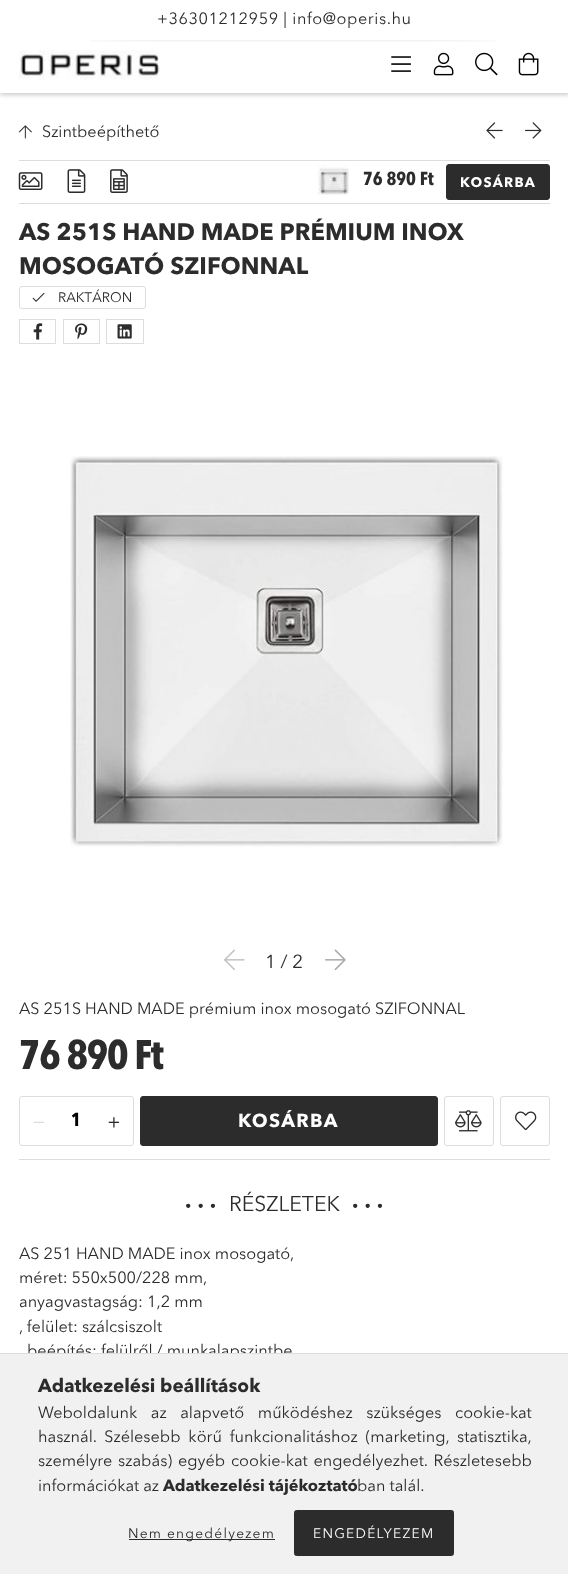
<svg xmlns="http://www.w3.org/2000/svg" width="568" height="1574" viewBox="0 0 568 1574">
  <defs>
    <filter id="blur1" x="-50%" y="-200%" width="200%" height="500%"><feGaussianBlur stdDeviation="2"/></filter>
  </defs>
  <rect width="100%" height="100%" fill="#ffffff"/>
  <rect x="0" y="3" width="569" height="92" fill="#000000" fill-opacity="0.2" filter="url(#blur1)"/>
  <rect x="0" y="0" width="568" height="93" fill="#ffffff"/>
  <text x="157" y="24" font-family="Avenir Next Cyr" font-size="16.25" letter-spacing="0.6" fill="#2c2c2c">+36301212959 | info@operis.hu</text>
  <image x="90" y="40" width="405" height="2" href="img1.png"/>
  <image x="19" y="50" width="141" height="30" href="img2.png"/>
  <image x="391" y="56" width="20" height="16" href="img3.png"/>
  <image x="433" y="52" width="21" height="24" href="img4.png"/>
  <image x="475" y="52" width="23" height="24" href="img5.png"/>
  <image x="518" y="52" width="21" height="24" href="img6.png"/>
  <image x="18" y="125" width="14" height="14" href="img7.png"/>
  <text x="42" y="137" font-family="Avenir Next Cyr" font-size="16.25" fill="#2c2c2c">Szintbeépíthető</text>
  <image x="486" y="122" width="17" height="17" href="img8.png"/>
  <image x="525" y="122" width="17" height="17" href="img9.png"/>
  <rect x="19" y="160" width="531" height="1" fill="#dddddd"/>
  <rect x="19" y="203" width="531" height="1" fill="#dddddd"/>
  <image x="18" y="172" width="25" height="18" href="img10.png"/>
  <image x="67" y="169" width="19" height="24" href="img11.png"/>
  <image x="110" y="169" width="18" height="24" href="img12.png"/>
  <image x="317" y="164" width="32" height="31" href="img13.png"/>
  <text x="363" y="185" font-family="Avenir Next" font-size="18.75" font-weight="bold" fill="#2c2c2c">76 890 Ft</text>
  <rect x="446.5" y="164.5" width="103" height="35" rx="2.5" fill="#2c2c2c" stroke="#2c2c2c"/>
  <text x="460" y="187" font-family="Avenir Next Cyr" font-size="13.75" font-weight="bold" letter-spacing="1.25" fill="#ffffff">KOSÁRBA</text>
  <text x="19" y="240" font-family="Avenir Next Cyr" font-size="23.75" font-weight="bold" fill="#2c2c2c">AS 251S HAND MADE PRÉMIUM INOX</text>
  <text x="19" y="274" font-family="Avenir Next Cyr" font-size="23.75" font-weight="bold" fill="#2c2c2c">MOSOGATÓ SZIFONNAL</text>
  <rect x="19.5" y="286.5" width="126" height="22" rx="2.5" fill="none" stroke="#dddddd"/>
  <image x="32" y="292" width="13" height="10" href="img14.png"/>
  <text x="58" y="302" font-family="Avenir Next Cyr" font-size="13.75" fill="#2c2c2c">RAKTÁRON</text>
  <rect x="19.5" y="319.5" width="36" height="24" fill="none" stroke="#dddddd"/>
  <image x="33" y="323" width="10" height="17" href="img15.png"/>
  <rect x="63.5" y="319.5" width="36" height="24" fill="none" stroke="#dddddd"/>
  <image x="75" y="323" width="13" height="17" href="img16.png"/>
  <rect x="106.5" y="319.5" width="37" height="24" fill="none" stroke="#dddddd"/>
  <image x="117" y="324" width="15" height="15" href="img17.png"/>
  <image x="70" y="456" width="433" height="391" href="img18.png"/>
  <image x="223" y="949" width="22" height="22" href="img19.png"/>
  <image x="325" y="949" width="21" height="22" href="img20.png"/>
  <text x="265" y="968" font-family="Avenir Next Cyr" font-size="18.75" fill="#2c2c2c">1 / 2</text>
  <text x="19" y="1014" font-family="Avenir Next Cyr" font-size="16.25" fill="#2c2c2c">AS 251S HAND MADE prémium inox mosogató SZIFONNAL</text>
  <text x="19" y="1069" font-family="Avenir Next" font-size="41" font-weight="bold" letter-spacing="-1.25" fill="#2c2c2c">76 890 Ft</text>
  <rect x="19.5" y="1096.5" width="114" height="49" rx="2.5" fill="none" stroke="#dddddd"/>
  <image x="33" y="1121" width="11" height="2" href="img21.png"/>
  <text x="71" y="1126" font-family="Avenir Next" font-size="18.75" font-weight="bold" fill="#000000">1</text>
  <image x="108" y="1117" width="12" height="11" href="img22.png"/>
  <rect x="140.5" y="1096.5" width="297" height="49" rx="2.5" fill="#2c2c2c" stroke="#2c2c2c"/>
  <text x="238" y="1127" font-family="Avenir Next Cyr" font-size="18.75" font-weight="bold" letter-spacing="1.25" fill="#ffffff">KOSÁRBA</text>
  <rect x="444.5" y="1096.5" width="49" height="49" rx="2.5" fill="none" stroke="#dddddd"/>
  <image x="455" y="1110" width="27" height="22" href="img23.png"/>
  <rect x="500.5" y="1096.5" width="49" height="49" rx="2.5" fill="none" stroke="#dddddd"/>
  <image x="515" y="1111" width="22" height="20" href="img24.png"/>
  <rect x="19" y="1159" width="531" height="1" fill="#dddddd"/>
  <text x="185" y="1212" font-family="Avenir Next Cyr" font-size="21.25" font-weight="bold" letter-spacing="6" fill="#2c2c2c">∙∙∙</text>
  <text x="229" y="1211" font-family="Avenir Next Cyr" font-size="21.25" fill="#2c2c2c">RÉSZLETEK</text>
  <text x="352" y="1212" font-family="Avenir Next Cyr" font-size="21.25" font-weight="bold" letter-spacing="6" fill="#2c2c2c">∙∙∙</text>
  <text x="19" y="1259" font-family="Avenir Next Cyr" font-size="16.25" fill="#2c2c2c">AS 251 HAND MADE inox mosogató,</text>
  <text x="19" y="1283" font-family="Avenir Next Cyr" font-size="16.25" fill="#2c2c2c">méret: 550x500/228 mm,</text>
  <text x="19" y="1307" font-family="Avenir Next Cyr" font-size="16.25" fill="#2c2c2c">anyagvastagság: 1,2 mm</text>
  <text x="19" y="1332" font-family="Avenir Next Cyr" font-size="16.25" fill="#2c2c2c">, felület: szálcsiszolt</text>
  <text x="27" y="1356" font-family="Avenir Next Cyr" font-size="16.25" fill="#2c2c2c">beépítés: felülről / munkalapszintbe</text>
  <rect x="0" y="1354" width="568" height="220" fill="#f1f1f1"/>
  <rect x="0" y="1353" width="568" height="1" fill="#dddddd"/>
  <text x="38" y="1392" font-family="Avenir Next Cyr" font-size="18.75" font-weight="bold" fill="#2c2c2c">Adatkezelési beállítások</text>
  <text x="38" y="1418" word-spacing="9.5" font-family="Avenir Next Cyr" font-size="16.25" fill="#2c2c2c">Weboldalunk az alapvető működéshez szükséges cookie-kat</text>
  <text x="38" y="1442" word-spacing="3.75" font-family="Avenir Next Cyr" font-size="16.25" fill="#2c2c2c">használ. Szélesebb körű funkcionalitáshoz (marketing, statisztika,</text>
  <text x="38" y="1466" word-spacing="1.75" font-family="Avenir Next Cyr" font-size="16.25" fill="#2c2c2c">személyre szabás) egyéb cookie-kat engedélyezhet. Részletesebb</text>
  <text x="38" y="1491" font-family="Avenir Next Cyr" font-size="16.25" fill="#2c2c2c">információkat az</text>
  <text x="163" y="1491" font-family="Avenir Next Cyr" font-size="16.25" font-weight="bold" fill="#2c2c2c">Adatkezelési tájékoztató</text>
  <text x="357" y="1491" font-family="Avenir Next Cyr" font-size="16.25" fill="#2c2c2c">ban talál.</text>
  <rect x="129" y="1539" width="146" height="1" fill="#2c2c2c"/>
  <text x="128" y="1538" font-family="Avenir Next Cyr" font-size="13.75" letter-spacing="1.25" fill="#2c2c2c">Nem engedélyezem</text>
  <rect x="294.5" y="1510.5" width="159" height="45" rx="2" fill="#2c2c2c" stroke="#2c2c2c"/>
  <text x="313" y="1538" font-family="Avenir Next Cyr" font-size="13.75" letter-spacing="1.25" fill="#ffffff">ENGEDÉLYEZEM</text>
</svg>
